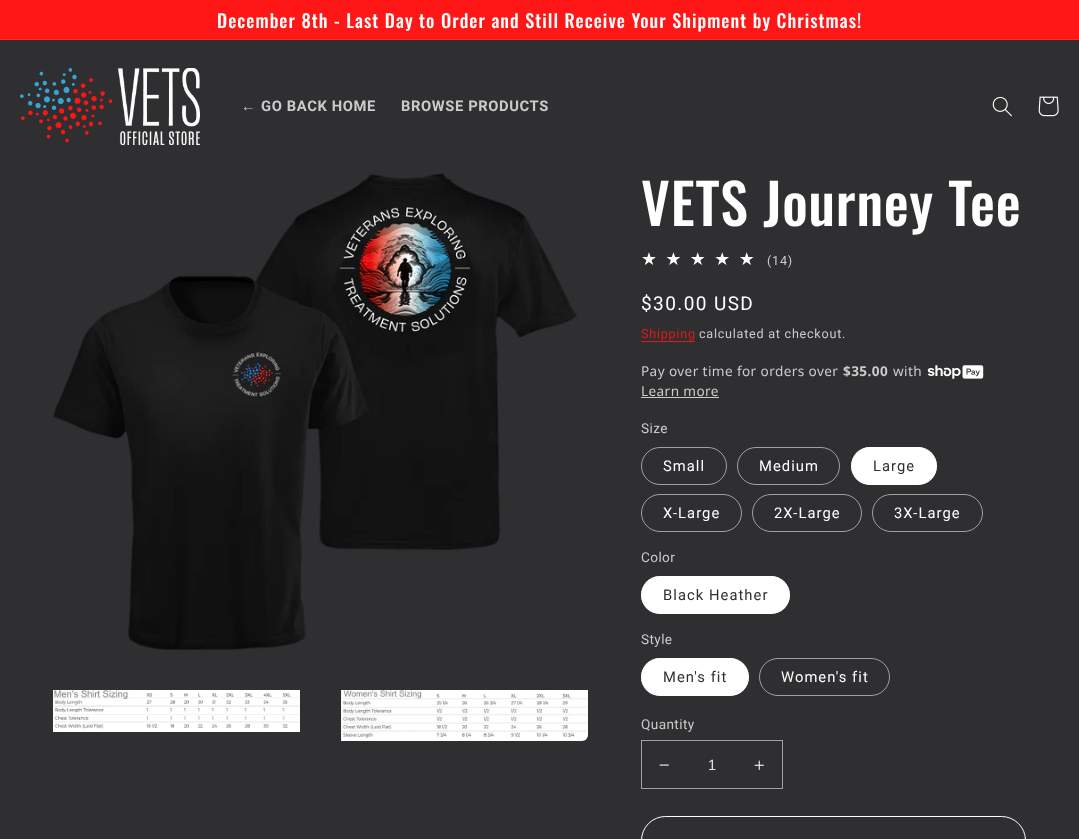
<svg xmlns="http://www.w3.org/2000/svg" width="1079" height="839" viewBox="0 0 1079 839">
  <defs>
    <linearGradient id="g1" gradientUnits="userSpaceOnUse" x1="641" y1="259" x2="763" y2="259"><stop offset="1" stop-color="#ffffff"/><stop offset="1" stop-color="#4e4d4f"/></linearGradient>
  </defs>
  <rect width="100%" height="100%" fill="#2f2e30"/>
  <rect x="0" y="0" width="1079" height="39" fill="#ff1616"/>
  <rect x="0" y="39" width="1079" height="1" fill="#ff2929"/>
  <text x="217" y="28" font-family="Oswald" font-size="18.2" font-weight="500" letter-spacing="1.05" fill="#ffffff">December 8th - Last Day to Order and Still Receive Your Shipment by Christmas!</text>
  <image x="20" y="68" width="180" height="77" href="img1.png"/>
  <text x="241" y="111" font-family="Liberation Sans" font-size="14.75" font-weight="bold" letter-spacing="0.6" fill="#cbcbcb">←</text>
  <text x="261" y="111" font-family="Roboto" font-size="14.75" font-weight="bold" letter-spacing="0.6" fill="#cbcbcb">GO BACK HOME</text>
  <text x="401" y="111" font-family="Roboto" font-size="14.75" font-weight="bold" letter-spacing="0.6" fill="#cbcbcb">BROWSE PRODUCTS</text>
  <image x="992" y="96" width="20" height="21" href="img2.png"/>
  <image x="1038" y="96" width="21" height="21" href="img3.png"/>
  <image x="53" y="173" width="524" height="477" href="img4.png"/>
  <image x="53" y="690" width="247" height="42" href="img5.png"/>
  <image x="341" y="690" width="247" height="51" href="img6.png"/>
  <text x="641" y="226" font-family="Oswald" font-size="56" font-weight="500" letter-spacing="0.8" fill="#ffffff">VETS Journey Tee</text>
  <text x="641" y="265" font-family="DejaVu Sans" font-size="17.75" letter-spacing="8.5" fill="url(#g1)">★★★★★</text>
  <text x="767" y="265" font-family="Roboto" font-size="12.6" letter-spacing="0.75" fill="#cbcbcb">(14)</text>
  <text x="641" y="310" font-family="Roboto" font-size="19" letter-spacing="1.4" fill="#ffffff">$30.00 USD</text>
  <text x="641" y="338" font-family="Roboto" font-size="12.6" letter-spacing="0.75" fill="#e01a1a">Shipping</text>
  <rect x="641" y="341" width="54" height="1" fill="#e01a1a"/>
  <text x="699" y="338" font-family="Roboto" font-size="12.6" letter-spacing="0.75" fill="#cbcbcb">calculated at checkout.</text>
  <text x="641" y="376" font-family="Noto Sans" font-size="13.6" letter-spacing="0.4" fill="#cbcbcb">Pay over time for orders over</text>
  <text x="843" y="376" font-family="Noto Sans" font-size="13.6" font-weight="bold" letter-spacing="0.4" fill="#cbcbcb">$35.00</text>
  <text x="893" y="376" font-family="Noto Sans" font-size="13.6" letter-spacing="0.4" fill="#cbcbcb">with</text>
  <image x="927" y="365" width="57" height="14" href="img7.png"/>
  <text x="641" y="396" font-family="Noto Sans" font-size="13.6" letter-spacing="0.4" fill="#cbcbcb">Learn more</text>
  <rect x="641" y="397" width="78" height="1" fill="#cbcbcb"/>
  <text x="641" y="433" font-family="Roboto" font-size="13.6" letter-spacing="0.4" fill="#cbcbcb">Size</text>
  <rect x="641.5" y="447.5" width="85" height="37" rx="18.5" fill="none" stroke="#a1a1a2"/>
  <text x="663" y="471" font-family="Roboto" font-size="14.75" letter-spacing="1.05" fill="#ffffff">Small</text>
  <rect x="737.5" y="447.5" width="102" height="37" rx="18.5" fill="none" stroke="#a1a1a2"/>
  <text x="759" y="471" font-family="Roboto" font-size="14.75" letter-spacing="1.05" fill="#ffffff">Medium</text>
  <rect x="851" y="447" width="86" height="38" rx="19" fill="#ffffff"/>
  <rect x="851.5" y="447.5" width="85" height="37" rx="18.5" fill="none" stroke="#ffffff" stroke-opacity="0.55"/>
  <text x="873" y="471" font-family="Roboto" font-size="14.75" letter-spacing="1.05" fill="#2f2e30">Large</text>
  <rect x="641.5" y="494.5" width="100" height="37" rx="18.5" fill="none" stroke="#a1a1a2"/>
  <text x="663" y="518" font-family="Roboto" font-size="14.75" letter-spacing="1.05" fill="#ffffff">X-Large</text>
  <rect x="752.5" y="494.5" width="109" height="37" rx="18.5" fill="none" stroke="#a1a1a2"/>
  <text x="774" y="518" font-family="Roboto" font-size="14.75" letter-spacing="1.05" fill="#ffffff">2X-Large</text>
  <rect x="872.5" y="494.5" width="110" height="37" rx="18.5" fill="none" stroke="#a1a1a2"/>
  <text x="894" y="518" font-family="Roboto" font-size="14.75" letter-spacing="1.05" fill="#ffffff">3X-Large</text>
  <text x="641" y="562" font-family="Roboto" font-size="13.6" letter-spacing="0.4" fill="#cbcbcb">Color</text>
  <rect x="641" y="576" width="149" height="38" rx="19" fill="#ffffff"/>
  <rect x="641.5" y="576.5" width="148" height="37" rx="18.5" fill="none" stroke="#ffffff" stroke-opacity="0.55"/>
  <text x="663" y="600" font-family="Roboto" font-size="14.75" letter-spacing="1.05" fill="#2f2e30">Black Heather</text>
  <text x="641" y="644" font-family="Roboto" font-size="13.6" letter-spacing="0.4" fill="#cbcbcb">Style</text>
  <rect x="641" y="658" width="108" height="38" rx="19" fill="#ffffff"/>
  <rect x="641.5" y="658.5" width="107" height="37" rx="18.5" fill="none" stroke="#ffffff" stroke-opacity="0.55"/>
  <text x="663" y="682" font-family="Roboto" font-size="14.75" letter-spacing="1.05" fill="#2f2e30">Men's fit</text>
  <rect x="759.5" y="658.5" width="130" height="37" rx="18.5" fill="none" stroke="#a1a1a2"/>
  <text x="781" y="682" font-family="Roboto" font-size="14.75" letter-spacing="1.05" fill="#ffffff">Women's fit</text>
  <text x="641" y="729" font-family="Roboto" font-size="13.6" letter-spacing="0.4" fill="#cbcbcb">Quantity</text>
  <image x="659" y="764" width="10" height="2" href="img8.png"/>
  <image x="754" y="760" width="10" height="10" href="img9.png"/>
  <rect x="641.5" y="740.5" width="141" height="48" fill="none" stroke="#a1a1a2"/>
  <text x="708" y="770" font-family="Liberation Sans" font-size="14.75" fill="#e0e0e0">1</text>
  <rect x="641.5" y="816.5" width="384" height="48" rx="24" fill="none" stroke="#ffffff"/>
</svg>
